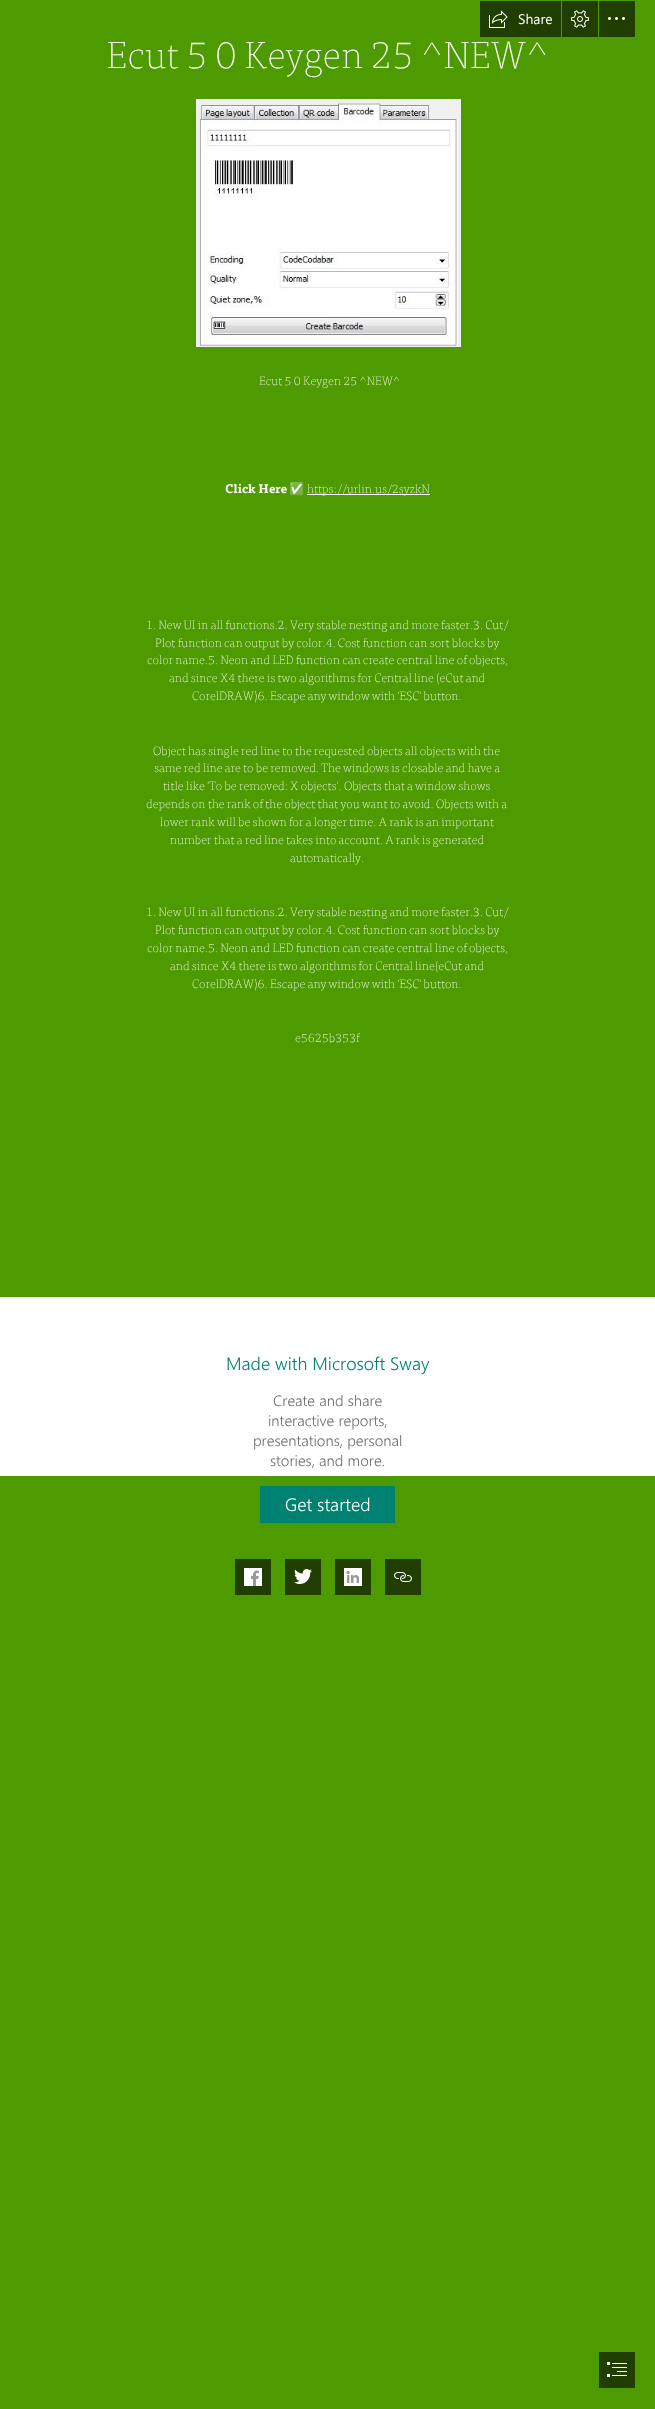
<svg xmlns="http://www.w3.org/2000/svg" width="655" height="2409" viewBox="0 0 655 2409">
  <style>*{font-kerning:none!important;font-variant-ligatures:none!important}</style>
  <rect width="100%" height="100%" fill="#4d9b00"/>
  <rect x="480" y="1" width="81" height="36" fill="#1f3e00"/>
  <image x="489" y="10" width="19" height="18" href="img1.png"/>
  <text x="518" y="24" font-family="Segoe UI" font-size="14" fill="#ffffff">Share</text>
  <rect x="562" y="1" width="36" height="36" fill="#1f3e00"/>
  <image x="571" y="10" width="18" height="18" href="img2.png"/>
  <rect x="599" y="1" width="36" height="36" fill="#1f3e00"/>
  <image x="608" y="17" width="17" height="3" href="img3.png"/>
  <text x="106" y="68" font-family="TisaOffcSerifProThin" font-size="38.4" font-weight="100" fill="#ffffff">Ecut 5 0 Keygen 25 ^NEW^</text>
  <image x="196" y="99" width="265" height="248" href="img4.png"/>
  <text x="259" y="385" font-family="TisaOffcSerifProThin" font-size="12.25" font-weight="100" fill="#ffffff">Ecut 5 0 Keygen 25 ^NEW^</text>
  <text x="225" y="493" font-family="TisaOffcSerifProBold" font-size="12.25" font-weight="bold" fill="#ffffff">Click Here</text>
  <text x="289" y="493" font-family="Noto Color Emoji" font-size="12.25" fill="#ffffff">✅</text>
  <rect x="307" y="494" width="123" height="1" fill="#ffffff"/>
  <text x="307" y="493" font-family="TisaOffcSerifProThin" font-size="12.25" font-weight="100" fill="#ffffff">https://urlin.us/2syzkN</text>
  <text x="146" y="629" font-family="TisaOffcSerifProThin" font-size="12.25" font-weight="100" fill="#ffffff">1. New UI in all functions.2. Very stable nesting and more faster.3. Cut/</text>
  <text x="155" y="647" font-family="TisaOffcSerifProThin" font-size="12.25" font-weight="100" fill="#ffffff">Plot function can output by color.4. Cost function can sort blocks by</text>
  <text x="147" y="664" font-family="TisaOffcSerifProThin" font-size="12.25" font-weight="100" fill="#ffffff">color name.5. Neon and LED function can create central line of objects,</text>
  <text x="169" y="682" font-family="TisaOffcSerifProThin" font-size="12.25" font-weight="100" fill="#ffffff">and since X4 there is two algorithms for Central line (eCut and</text>
  <text x="192" y="700" font-family="TisaOffcSerifProThin" font-size="12.25" font-weight="100" fill="#ffffff">CorelDRAW)6. Escape any window with 'ESC' button.</text>
  <text x="153" y="755" font-family="TisaOffcSerifProThin" font-size="12.25" font-weight="100" fill="#ffffff">Object has single red line to the requested objects all objects with the</text>
  <text x="154" y="772" font-family="TisaOffcSerifProThin" font-size="12.25" font-weight="100" fill="#ffffff">same red line are to be removed. The windows is closable and have a</text>
  <text x="163" y="790" font-family="TisaOffcSerifProThin" font-size="12.25" font-weight="100" fill="#ffffff">title like 'To be removed: X objects'. Objects that a window shows</text>
  <text x="146" y="808" font-family="TisaOffcSerifProThin" font-size="12.25" font-weight="100" fill="#ffffff">depends on the rank of the object that you want to avoid. Objects with a</text>
  <text x="160" y="826" font-family="TisaOffcSerifProThin" font-size="12.25" font-weight="100" fill="#ffffff">lower rank will be shown for a longer time. A rank is an important</text>
  <text x="170" y="844" font-family="TisaOffcSerifProThin" font-size="12.25" font-weight="100" fill="#ffffff">number that a red line takes into account. A rank is generated</text>
  <text x="290" y="862" font-family="TisaOffcSerifProThin" font-size="12.25" font-weight="100" fill="#ffffff">automatically.</text>
  <text x="146" y="916" font-family="TisaOffcSerifProThin" font-size="12.25" font-weight="100" fill="#ffffff">1. New UI in all functions.2. Very stable nesting and more faster.3. Cut/</text>
  <text x="155" y="934" font-family="TisaOffcSerifProThin" font-size="12.25" font-weight="100" fill="#ffffff">Plot function can output by color.4. Cost function can sort blocks by</text>
  <text x="147" y="952" font-family="TisaOffcSerifProThin" font-size="12.25" font-weight="100" fill="#ffffff">color name.5. Neon and LED function can create central line of objects,</text>
  <text x="170" y="970" font-family="TisaOffcSerifProThin" font-size="12.25" font-weight="100" fill="#ffffff">and since X4 there is two algorithms for Central line(eCut and</text>
  <text x="192" y="988" font-family="TisaOffcSerifProThin" font-size="12.25" font-weight="100" fill="#ffffff">CorelDRAW)6. Escape any window with 'ESC' button.</text>
  <text x="295" y="1042" font-family="TisaOffcSerifProThin" font-size="12.25" font-weight="100" fill="#ffffff">e5625b353f</text>
  <rect x="0" y="1297" width="655" height="179" fill="#ffffff"/>
  <text x="226" y="1370" font-family="Segoe UI" font-size="18" font-weight="300" fill="#008272">Made with Microsoft Sway</text>
  <text x="273" y="1406" font-family="Segoe UI" font-size="15" font-weight="300" fill="#6e6e6e">Create and share</text>
  <text x="268" y="1426" font-family="Segoe UI" font-size="15" font-weight="300" fill="#6e6e6e">interactive reports,</text>
  <text x="253" y="1446" font-family="Segoe UI" font-size="15" font-weight="300" fill="#6e6e6e">presentations, personal</text>
  <text x="270" y="1466" font-family="Segoe UI" font-size="15" font-weight="300" fill="#6e6e6e">stories, and more.</text>
  <rect x="260" y="1486" width="135" height="37" fill="#008272"/>
  <text x="285" y="1511" font-family="Segoe UI" font-size="18" font-weight="300" fill="#ffffff">Get started</text>
  <rect x="235" y="1559" width="36" height="36" fill="#1f3e00"/>
  <rect x="244" y="1568" width="18" height="18" fill="#ffffff"/>
  <image x="251" y="1570" width="8" height="16" href="img5.png"/>
  <rect x="285" y="1559" width="36" height="36" fill="#1f3e00"/>
  <image x="294" y="1569" width="18" height="15" href="img6.png"/>
  <rect x="335" y="1559" width="36" height="36" fill="#1f3e00"/>
  <rect x="344" y="1568" width="18" height="18" fill="#ffffff"/>
  <image x="346" y="1571" width="13" height="12" href="img7.png"/>
  <rect x="385" y="1559" width="36" height="36" fill="#1f3e00"/>
  <image x="394" y="1572" width="18" height="10" href="img8.png"/>
  <rect x="599" y="2352" width="36" height="36" fill="#1f3e00"/>
  <image x="607" y="2362" width="20" height="15" href="img9.png"/>
</svg>
